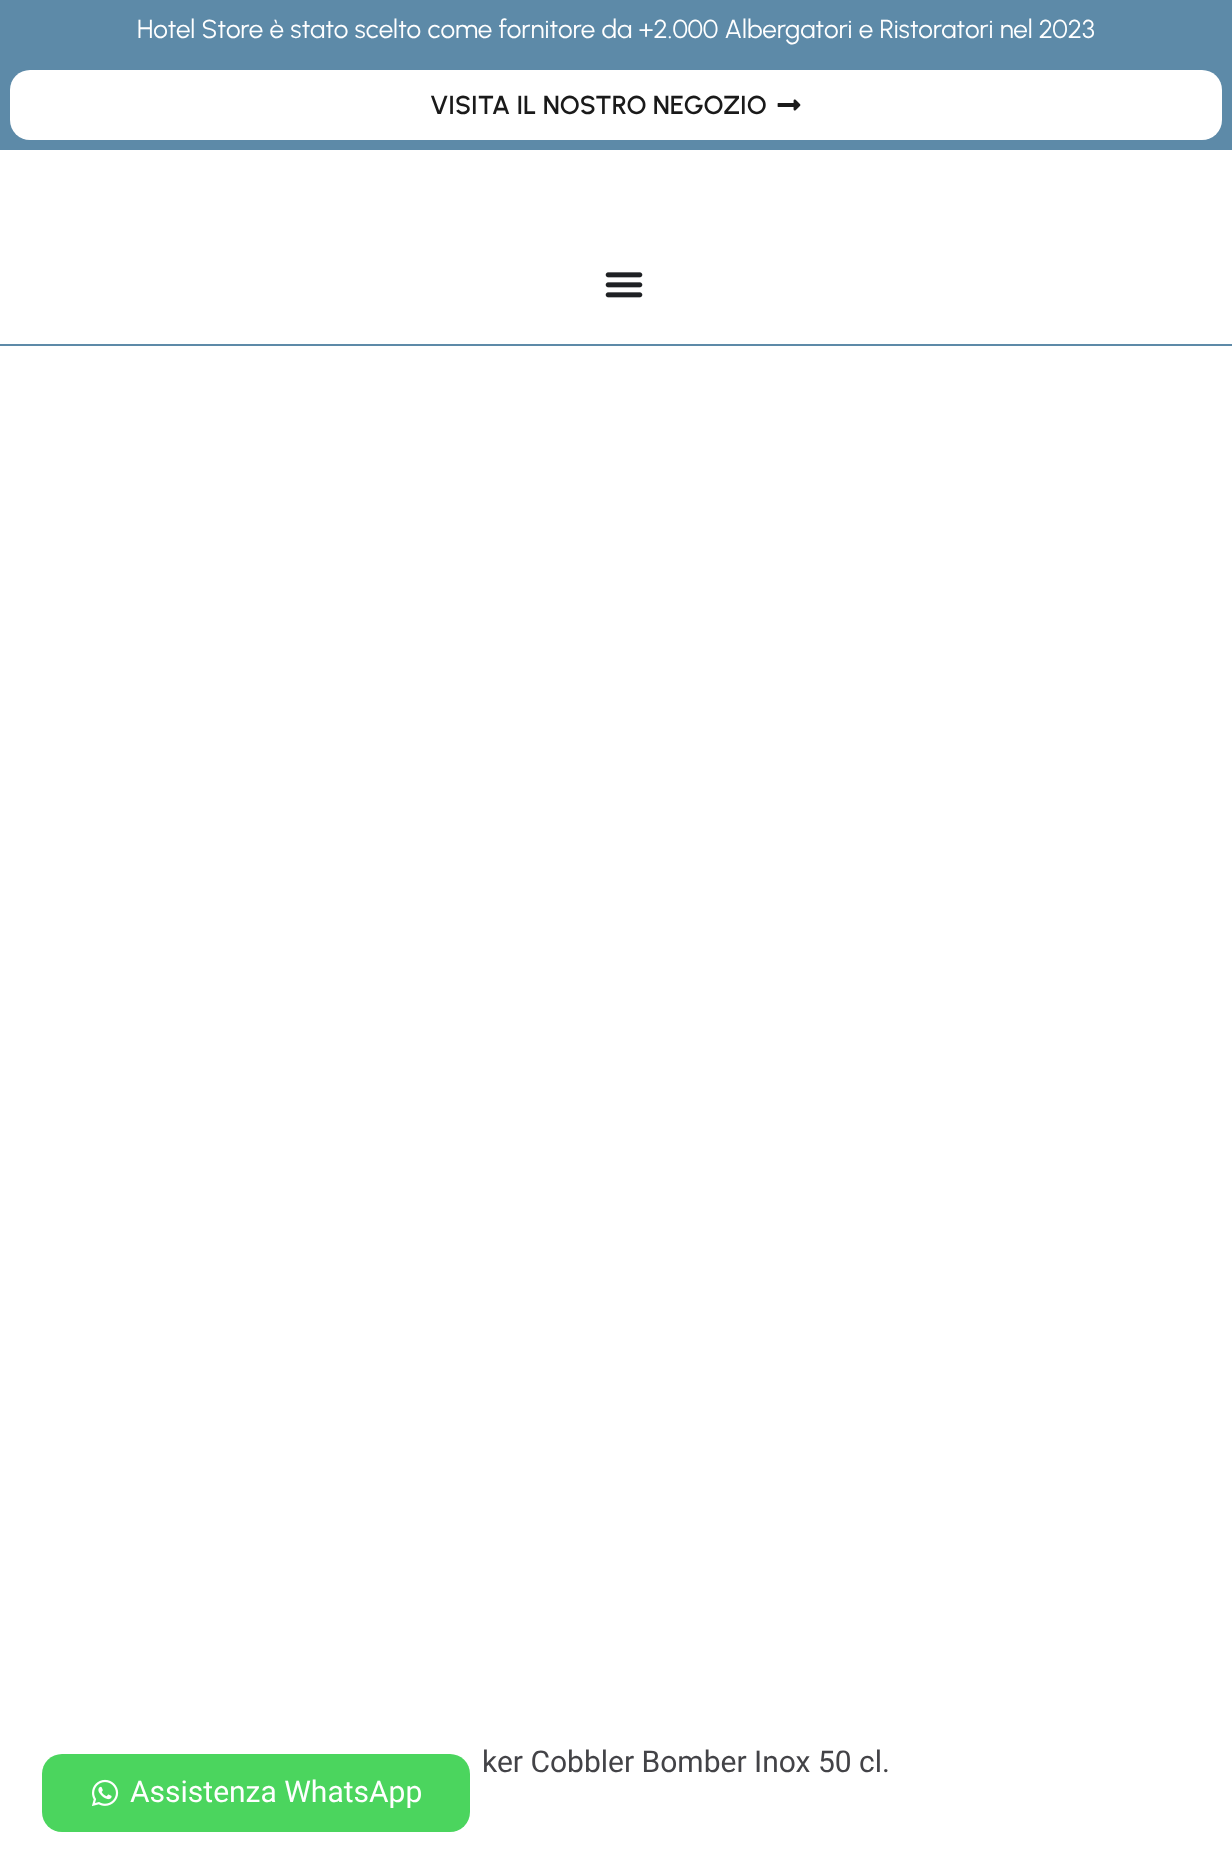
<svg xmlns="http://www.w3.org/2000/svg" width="1232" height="1856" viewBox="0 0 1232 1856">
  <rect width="100%" height="100%" fill="#ffffff"/>
  <rect x="0" y="0" width="1232" height="150" fill="#5d8aa8"/>
  <text x="137" y="38" font-family="Urbanist" font-size="26" fill="#ffffff">Hotel Store è stato scelto come fornitore da +2.000 Albergatori e Ristoratori nel 2023</text>
  <rect x="10" y="70" width="1212" height="70" rx="20" fill="#ffffff"/>
  <text x="430" y="114" font-family="Urbanist" font-size="26" font-weight="600" fill="#1a1a1a">VISITA IL NOSTRO NEGOZIO</text>
  <image x="777" y="99" width="24" height="12" href="img1.png"/>
  <rect x="0" y="344" width="1232" height="2" fill="#5d8aa8"/>
  <image x="605" y="272" width="38" height="26" href="img2.png"/>
  <text x="482" y="1772" font-family="Roboto" font-size="30" fill="#434347">ker Cobbler Bomber Inox 50 cl.</text>
  <rect x="42" y="1754" width="428" height="78" rx="20" fill="#4bd55e"/>
  <image x="92" y="1779" width="27" height="27" href="img3.png"/>
  <text x="130" y="1802" font-family="Roboto" font-size="30" fill="#ffffff">Assistenza WhatsApp</text>
</svg>
